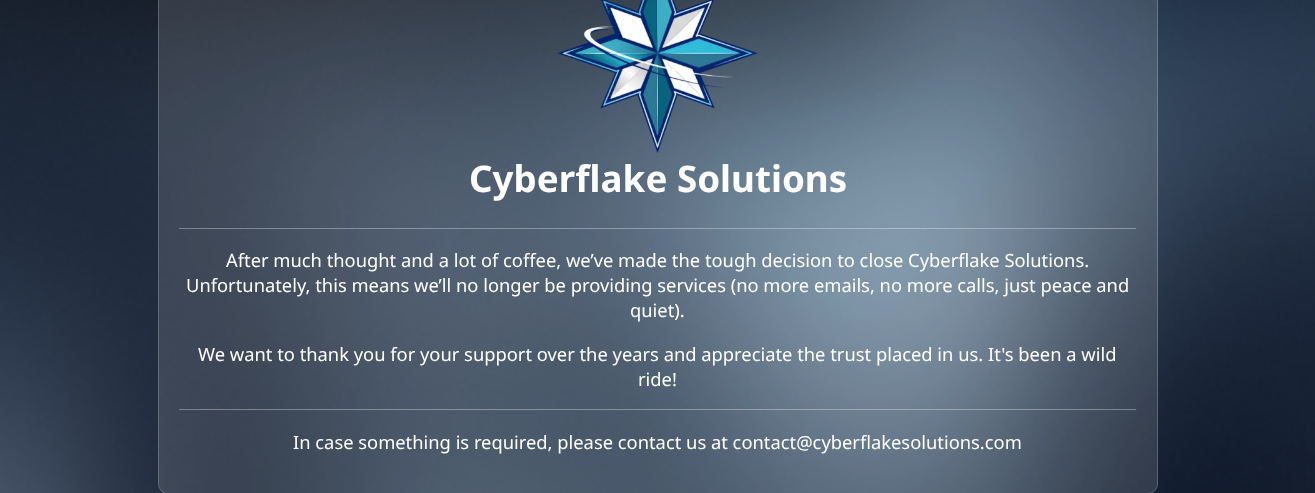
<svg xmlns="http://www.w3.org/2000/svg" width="1315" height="493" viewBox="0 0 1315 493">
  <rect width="100%" height="100%" fill="#ffffff"/>
  <image x="0" y="0" width="1315" height="493" href="img1.png"/>
  <rect x="158" y="-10" width="1000" height="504" rx="10" fill="#ffffff" fill-opacity="0.13"/>
  <rect x="158.5" y="-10.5" width="999" height="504" rx="9.5" fill="none" stroke="#ffffff" stroke-opacity="0.2"/>
  <image x="557" y="0" width="201" height="154" href="img2.png"/>
  <text x="469" y="192" font-family="Noto Sans" font-size="36.75" font-weight="bold" fill="#ffffff">Cyberflake Solutions</text>
  <rect x="179" y="228" width="957" height="1" fill="#ffffff" fill-opacity="0.33"/>
  <text x="226" y="267" font-family="Noto Sans" font-size="18.33" fill="#ffffff">After much thought and a lot of coffee, we’ve made the tough decision to close Cyberflake Solutions.</text>
  <text x="186" y="292" font-family="Noto Sans" font-size="18.33" fill="#ffffff">Unfortunately, this means we’ll no longer be providing services (no more emails, no more calls, just peace and</text>
  <text x="630" y="317" font-family="Noto Sans" font-size="18.33" fill="#ffffff">quiet).</text>
  <text x="198" y="361" font-family="Noto Sans" font-size="18.33" fill="#ffffff">We want to thank you for your support over the years and appreciate the trust placed in us. It's been a wild</text>
  <text x="638" y="386" font-family="Noto Sans" font-size="18.33" fill="#ffffff">ride!</text>
  <rect x="179" y="409" width="957" height="1" fill="#ffffff" fill-opacity="0.33"/>
  <text x="293" y="449" font-family="Noto Sans" font-size="18.33" fill="#ffffff">In case something is required, please contact us at contact@cyberflakesolutions.com</text>
</svg>
